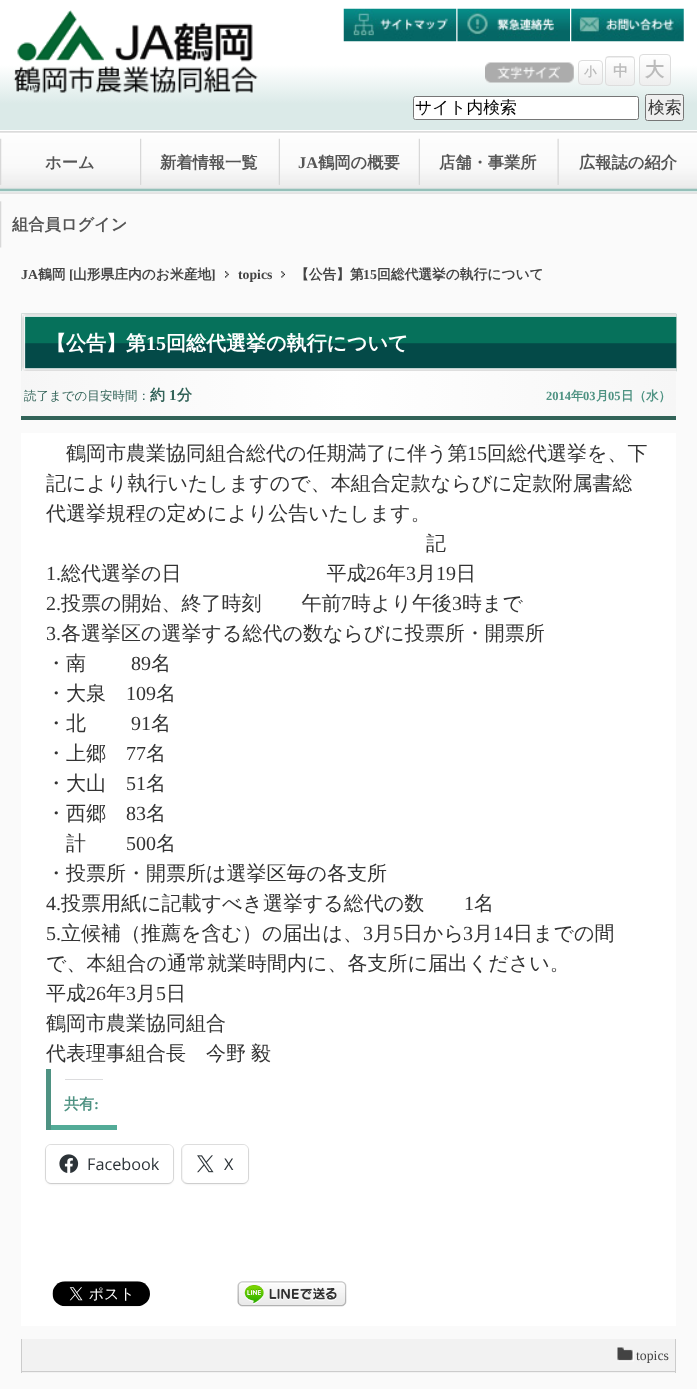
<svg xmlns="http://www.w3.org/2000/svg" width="697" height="1389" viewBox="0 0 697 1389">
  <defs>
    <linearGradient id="g1" gradientUnits="userSpaceOnUse" x1="349" y1="0" x2="349" y2="130"><stop offset="0.2" stop-color="#ffffff"/><stop offset="0.5" stop-color="#ffffff"/><stop offset="0.8" stop-color="#dbeae8"/></linearGradient>
    <clipPath id="clip1"><rect x="578" y="60" width="25" height="25" rx="4"/></clipPath>
    <linearGradient id="g2" gradientUnits="userSpaceOnUse" x1="590" y1="61" x2="590" y2="84"><stop offset="0" stop-color="#ffffff"/><stop offset="1" stop-color="#eeeeee"/></linearGradient>
    <clipPath id="clip2"><rect x="605" y="56" width="30" height="30" rx="4"/></clipPath>
    <linearGradient id="g3" gradientUnits="userSpaceOnUse" x1="620" y1="30" x2="620" y2="58"><stop offset="0" stop-color="#ffffff"/><stop offset="1" stop-color="#eeeeee"/></linearGradient>
    <linearGradient id="g4" gradientUnits="userSpaceOnUse" x1="620" y1="58" x2="620" y2="85"><stop offset="0" stop-color="#ffffff"/><stop offset="1" stop-color="#eeeeee"/></linearGradient>
    <clipPath id="clip3"><rect x="639" y="54" width="32" height="32" rx="4"/></clipPath>
    <linearGradient id="g5" gradientUnits="userSpaceOnUse" x1="655" y1="55" x2="655" y2="85"><stop offset="0" stop-color="#ffffff"/><stop offset="1" stop-color="#eeeeee"/></linearGradient>
    <linearGradient id="g6" gradientUnits="userSpaceOnUse" x1="21" y1="394" x2="676" y2="394"><stop offset="0" stop-color="#f6f6f6"/><stop offset="0.5" stop-color="#ffffff"/><stop offset="1" stop-color="#f6f6f6"/></linearGradient>
    <filter id="blur1" x="-50%" y="-200%" width="200%" height="500%"><feGaussianBlur stdDeviation="1"/></filter>
  </defs>
  <rect width="100%" height="100%" fill="#fafafa"/>
  <rect x="0" y="0" width="697" height="130" fill="url(#g1)"/>
  <image x="13" y="10" width="245" height="83" href="img1.png"/>
  <image x="343" y="8" width="114" height="34" href="img2.png"/>
  <image x="457" y="8" width="113" height="34" href="img3.png"/>
  <image x="571" y="8" width="113" height="34" href="img4.png"/>
  <image x="485" y="62" width="89" height="21" href="img5.png"/>
  <g clip-path="url(#clip1)">
    <rect x="578" y="61" width="25" height="23" fill="url(#g2)"/>
  </g>
  <rect x="578.5" y="60.5" width="24" height="24" rx="3.5" fill="none" stroke="#dddddd"/>
  <text x="584" y="76" font-family="WenQuanYi Zen Hei" font-size="12.5" font-weight="bold" fill="#bbbbbb">小</text>
  <g clip-path="url(#clip2)">
    <rect x="605" y="56" width="30" height="2" fill="url(#g3)"/>
    <rect x="605" y="58" width="30" height="27" fill="url(#g4)"/>
  </g>
  <rect x="605.5" y="56.5" width="29" height="29" rx="3.5" fill="none" stroke="#dddddd"/>
  <text x="613" y="76" font-family="WenQuanYi Zen Hei" font-size="15" font-weight="bold" fill="#bbbbbb">中</text>
  <g clip-path="url(#clip3)">
    <rect x="639" y="55" width="32" height="30" fill="url(#g5)"/>
  </g>
  <rect x="639.5" y="54.5" width="31" height="31" rx="3.5" fill="none" stroke="#dddddd"/>
  <text x="645" y="76" font-family="WenQuanYi Zen Hei" font-size="19" font-weight="bold" fill="#bbbbbb">大</text>
  <rect x="413.5" y="96.5" width="225" height="23" rx="2" fill="#ffffff" stroke="#767676"/>
  <text x="415" y="113" font-family="WenQuanYi Zen Hei" font-size="16.75" font-weight="500" fill="#000000">サイト内検索</text>
  <rect x="645.5" y="94.5" width="38" height="26" rx="2" fill="#efefef" stroke="#767676"/>
  <text x="648" y="113" font-family="WenQuanYi Zen Hei" font-size="16.75" font-weight="500" fill="#333333">検索</text>
  <image x="0" y="130" width="697" height="64" href="img6.png"/>
  <image x="0" y="138" width="2" height="47" href="img7.png"/>
  <text x="45" y="168" font-family="WenQuanYi Zen Hei" font-size="16.25" font-weight="bold" fill="#555555">ホーム</text>
  <image x="140" y="138" width="2" height="47" href="img7.png"/>
  <text x="160" y="168" font-family="WenQuanYi Zen Hei" font-size="16.25" font-weight="bold" fill="#555555">新着情報一覧</text>
  <image x="278" y="138" width="2" height="47" href="img8.png"/>
  <text x="298" y="168" font-family="Liberation Serif" font-size="16.25" font-weight="bold" fill="#555555">JA</text>
  <text x="318" y="168" font-family="WenQuanYi Zen Hei" font-size="16.25" font-weight="bold" fill="#555555">鶴岡の概要</text>
  <image x="418" y="138" width="2" height="47" href="img8.png"/>
  <text x="439" y="168" font-family="WenQuanYi Zen Hei" font-size="16.25" font-weight="bold" fill="#555555">店舗・事業所</text>
  <image x="557" y="138" width="2" height="47" href="img9.png"/>
  <text x="579" y="168" font-family="WenQuanYi Zen Hei" font-size="16.25" font-weight="bold" fill="#555555">広報誌の紹介</text>
  <image x="0" y="201" width="2" height="47" href="img10.png"/>
  <text x="12" y="230" font-family="WenQuanYi Zen Hei" font-size="16.25" font-weight="bold" fill="#555555">組合員ログイン</text>
  <text x="21" y="279" font-family="Liberation Serif" font-size="13.75" font-weight="bold" fill="#444444">JA</text>
  <text x="38" y="279" font-family="WenQuanYi Zen Hei" font-size="13.75" font-weight="bold" fill="#444444">鶴岡</text>
  <text x="69" y="279" font-family="Liberation Serif" font-size="13.75" font-weight="bold" fill="#444444">[</text>
  <text x="73" y="279" font-family="WenQuanYi Zen Hei" font-size="13.75" font-weight="bold" fill="#444444">山形県庄内のお米産地</text>
  <text x="211" y="279" font-family="Liberation Serif" font-size="13.75" font-weight="bold" fill="#444444">]</text>
  <image x="225" y="271" width="4" height="7" href="img11.png"/>
  <text x="238" y="279" font-family="Liberation Serif" font-size="13.75" font-weight="bold" fill="#444444">topics</text>
  <image x="281" y="271" width="4" height="7" href="img12.png"/>
  <text x="295" y="279" font-family="WenQuanYi Zen Hei" font-size="13.75" font-weight="bold" fill="#444444">【公告】第</text>
  <text x="363" y="279" font-family="Liberation Serif" font-size="13.75" font-weight="bold" fill="#444444">15</text>
  <text x="377" y="279" font-family="WenQuanYi Zen Hei" font-size="13.75" font-weight="bold" fill="#444444">回総代選挙の執行について</text>
  <image x="21" y="313" width="656" height="59" href="img13.png"/>
  <text x="46" y="350" font-family="WenQuanYi Zen Hei" font-size="20" font-weight="bold" fill="#ffffff">【公告】第</text>
  <text x="146" y="350" font-family="Liberation Serif" font-size="20" font-weight="bold" fill="#ffffff">15</text>
  <text x="166" y="350" font-family="WenQuanYi Zen Hei" font-size="20" font-weight="bold" fill="#ffffff">回総代選挙の執行について</text>
  <rect x="21" y="371" width="655" height="45" fill="url(#g6)"/>
  <rect x="21" y="416" width="655" height="4" fill="#326358"/>
  <text x="24" y="400" font-family="WenQuanYi Zen Hei" font-size="12.5" font-weight="500" fill="#326358">読了までの目安時間：</text>
  <text x="150" y="400" font-family="WenQuanYi Zen Hei" font-size="15" font-weight="bold" fill="#326358">約</text>
  <text x="169" y="400" font-family="Liberation Serif" font-size="15" font-weight="bold" fill="#326358">1</text>
  <text x="177" y="400" font-family="WenQuanYi Zen Hei" font-size="15" font-weight="bold" fill="#326358">分</text>
  <text x="546" y="400" font-family="Liberation Serif" font-size="12.5" font-weight="bold" fill="#4e9282">2014</text>
  <text x="571" y="400" font-family="WenQuanYi Zen Hei" font-size="12.5" font-weight="bold" fill="#4e9282">年</text>
  <text x="583" y="400" font-family="Liberation Serif" font-size="12.5" font-weight="bold" fill="#4e9282">03</text>
  <text x="596" y="400" font-family="WenQuanYi Zen Hei" font-size="12.5" font-weight="bold" fill="#4e9282">月</text>
  <text x="608" y="400" font-family="Liberation Serif" font-size="12.5" font-weight="bold" fill="#4e9282">05</text>
  <text x="621" y="400" font-family="WenQuanYi Zen Hei" font-size="12.5" font-weight="bold" fill="#4e9282">日（水）</text>
  <rect x="21" y="433" width="655" height="893" fill="#ffffff"/>
  <text x="66" y="460" font-family="WenQuanYi Zen Hei" font-size="20" font-weight="500" fill="#333333">鶴岡市農業協同組合総代の任期満了に伴う第</text>
  <text x="467" y="460" font-family="Liberation Serif" font-size="20" fill="#333333">15</text>
  <text x="487" y="460" font-family="WenQuanYi Zen Hei" font-size="20" font-weight="500" fill="#333333">回総代選挙を、下</text>
  <text x="46" y="490" font-family="WenQuanYi Zen Hei" font-size="20" font-weight="500" fill="#333333">記により執行いたしますので、本組合定款ならびに定款附属書総</text>
  <text x="46" y="520" font-family="WenQuanYi Zen Hei" font-size="20" font-weight="500" fill="#333333">代選挙規程の定めにより公告いたします。</text>
  <text x="426" y="550" font-family="WenQuanYi Zen Hei" font-size="20" font-weight="500" fill="#333333">記</text>
  <text x="46" y="580" font-family="Liberation Serif" font-size="20" fill="#333333">1.</text>
  <text x="61" y="580" word-spacing="-1" font-family="WenQuanYi Zen Hei" font-size="20" font-weight="500" fill="#333333">総代選挙の日　　　　　　　 平成</text>
  <text x="366" y="580" font-family="Liberation Serif" font-size="20" fill="#333333">26</text>
  <text x="386" y="580" font-family="WenQuanYi Zen Hei" font-size="20" font-weight="500" fill="#333333">年</text>
  <text x="406" y="580" font-family="Liberation Serif" font-size="20" fill="#333333">3</text>
  <text x="416" y="580" font-family="WenQuanYi Zen Hei" font-size="20" font-weight="500" fill="#333333">月</text>
  <text x="436" y="580" font-family="Liberation Serif" font-size="20" fill="#333333">19</text>
  <text x="456" y="580" font-family="WenQuanYi Zen Hei" font-size="20" font-weight="500" fill="#333333">日</text>
  <text x="46" y="610" font-family="Liberation Serif" font-size="20" fill="#333333">2.</text>
  <text x="61" y="610" font-family="WenQuanYi Zen Hei" font-size="20" font-weight="500" fill="#333333">投票の開始、終了時刻　　午前</text>
  <text x="341" y="610" font-family="Liberation Serif" font-size="20" fill="#333333">7</text>
  <text x="351" y="610" font-family="WenQuanYi Zen Hei" font-size="20" font-weight="500" fill="#333333">時より午後</text>
  <text x="452" y="610" font-family="Liberation Serif" font-size="20" fill="#333333">3</text>
  <text x="462" y="610" font-family="WenQuanYi Zen Hei" font-size="20" font-weight="500" fill="#333333">時まで</text>
  <text x="46" y="640" font-family="Liberation Serif" font-size="20" fill="#333333">3.</text>
  <text x="61" y="640" font-family="WenQuanYi Zen Hei" font-size="20" font-weight="500" fill="#333333">各選挙区の選挙する総代の数ならびに投票所・開票所</text>
  <text x="46" y="670" font-family="WenQuanYi Zen Hei" font-size="20" font-weight="500" fill="#333333">・南</text>
  <text x="131" y="670" font-family="Liberation Serif" font-size="20" fill="#333333">89</text>
  <text x="151" y="670" font-family="WenQuanYi Zen Hei" font-size="20" font-weight="500" fill="#333333">名</text>
  <text x="46" y="700" font-family="WenQuanYi Zen Hei" font-size="20" font-weight="500" fill="#333333">・大泉</text>
  <text x="126" y="700" font-family="Liberation Serif" font-size="20" fill="#333333">109</text>
  <text x="156" y="700" font-family="WenQuanYi Zen Hei" font-size="20" font-weight="500" fill="#333333">名</text>
  <text x="46" y="730" font-family="WenQuanYi Zen Hei" font-size="20" font-weight="500" fill="#333333">・北</text>
  <text x="131" y="730" font-family="Liberation Serif" font-size="20" fill="#333333">91</text>
  <text x="151" y="730" font-family="WenQuanYi Zen Hei" font-size="20" font-weight="500" fill="#333333">名</text>
  <text x="46" y="760" font-family="WenQuanYi Zen Hei" font-size="20" font-weight="500" fill="#333333">・上郷</text>
  <text x="126" y="760" font-family="Liberation Serif" font-size="20" fill="#333333">77</text>
  <text x="146" y="760" font-family="WenQuanYi Zen Hei" font-size="20" font-weight="500" fill="#333333">名</text>
  <text x="46" y="790" font-family="WenQuanYi Zen Hei" font-size="20" font-weight="500" fill="#333333">・大山</text>
  <text x="126" y="790" font-family="Liberation Serif" font-size="20" fill="#333333">51</text>
  <text x="146" y="790" font-family="WenQuanYi Zen Hei" font-size="20" font-weight="500" fill="#333333">名</text>
  <text x="46" y="820" font-family="WenQuanYi Zen Hei" font-size="20" font-weight="500" fill="#333333">・西郷</text>
  <text x="126" y="820" font-family="Liberation Serif" font-size="20" fill="#333333">83</text>
  <text x="146" y="820" font-family="WenQuanYi Zen Hei" font-size="20" font-weight="500" fill="#333333">名</text>
  <text x="66" y="850" font-family="WenQuanYi Zen Hei" font-size="20" font-weight="500" fill="#333333">計</text>
  <text x="126" y="850" font-family="Liberation Serif" font-size="20" fill="#333333">500</text>
  <text x="156" y="850" font-family="WenQuanYi Zen Hei" font-size="20" font-weight="500" fill="#333333">名</text>
  <text x="46" y="880" font-family="WenQuanYi Zen Hei" font-size="20" font-weight="500" fill="#333333">・投票所・開票所は選挙区毎の各支所</text>
  <text x="46" y="910" font-family="Liberation Serif" font-size="20" fill="#333333">4.</text>
  <text x="61" y="910" font-family="WenQuanYi Zen Hei" font-size="20" font-weight="500" fill="#333333">投票用紙に記載すべき選挙する総代の数</text>
  <text x="464" y="910" font-family="Liberation Serif" font-size="20" fill="#333333">1</text>
  <text x="474" y="910" font-family="WenQuanYi Zen Hei" font-size="20" font-weight="500" fill="#333333">名</text>
  <text x="46" y="940" font-family="Liberation Serif" font-size="20" fill="#333333">5.</text>
  <text x="61" y="940" font-family="WenQuanYi Zen Hei" font-size="20" font-weight="500" fill="#333333">立候補（推薦を含む）の届出は、</text>
  <text x="363" y="940" font-family="Liberation Serif" font-size="20" fill="#333333">3</text>
  <text x="373" y="940" font-family="WenQuanYi Zen Hei" font-size="20" font-weight="500" fill="#333333">月</text>
  <text x="393" y="940" font-family="Liberation Serif" font-size="20" fill="#333333">5</text>
  <text x="403" y="940" font-family="WenQuanYi Zen Hei" font-size="20" font-weight="500" fill="#333333">日から</text>
  <text x="463" y="940" font-family="Liberation Serif" font-size="20" fill="#333333">3</text>
  <text x="473" y="940" font-family="WenQuanYi Zen Hei" font-size="20" font-weight="500" fill="#333333">月</text>
  <text x="493" y="940" font-family="Liberation Serif" font-size="20" fill="#333333">14</text>
  <text x="513" y="940" font-family="WenQuanYi Zen Hei" font-size="20" font-weight="500" fill="#333333">日までの間</text>
  <text x="46" y="970" font-family="WenQuanYi Zen Hei" font-size="20" font-weight="500" fill="#333333">で、本組合の通常就業時間内に、各支所に届出ください。</text>
  <text x="46" y="1000" font-family="WenQuanYi Zen Hei" font-size="20" font-weight="500" fill="#333333">平成</text>
  <text x="86" y="1000" font-family="Liberation Serif" font-size="20" fill="#333333">26</text>
  <text x="106" y="1000" font-family="WenQuanYi Zen Hei" font-size="20" font-weight="500" fill="#333333">年</text>
  <text x="126" y="1000" font-family="Liberation Serif" font-size="20" fill="#333333">3</text>
  <text x="136" y="1000" font-family="WenQuanYi Zen Hei" font-size="20" font-weight="500" fill="#333333">月</text>
  <text x="156" y="1000" font-family="Liberation Serif" font-size="20" fill="#333333">5</text>
  <text x="166" y="1000" font-family="WenQuanYi Zen Hei" font-size="20" font-weight="500" fill="#333333">日</text>
  <text x="46" y="1030" font-family="WenQuanYi Zen Hei" font-size="20" font-weight="500" fill="#333333">鶴岡市農業協同組合</text>
  <text x="46" y="1060" word-spacing="-1" font-family="WenQuanYi Zen Hei" font-size="20" font-weight="500" fill="#333333">代表理事組合長　今野 毅</text>
  <rect x="51" y="1125" width="66" height="5" fill="#53ab97"/>
  <rect x="46" y="1069" width="5" height="61" fill="#4e9282"/>
  <rect x="65" y="1079" width="38" height="1" fill="#dcdcde"/>
  <text x="64" y="1109" font-family="WenQuanYi Zen Hei" font-size="15" font-weight="bold" fill="#4e9282">共有</text>
  <text x="94" y="1109" font-family="Liberation Serif" font-size="15" font-weight="bold" fill="#4e9282">:</text>
  <rect x="45.5" y="1144.5" width="128" height="39" rx="5.5" fill="none" stroke="#e0e0e0"/>
  <rect x="46" y="1146" width="127" height="38" rx="5" fill="#000000" fill-opacity="0.12" filter="url(#blur1)"/>
  <rect x="46" y="1145" width="127" height="38" rx="5" fill="#ffffff"/>
  <image x="59" y="1154" width="20" height="19" href="img14.png"/>
  <text x="87" y="1170" font-family="Open Sans" font-size="16.25" fill="#2c3338">Facebook</text>
  <rect x="181.5" y="1144.5" width="67" height="39" rx="5.5" fill="none" stroke="#e0e0e0"/>
  <rect x="183" y="1146" width="65" height="38" rx="5" fill="#000000" fill-opacity="0.12" filter="url(#blur1)"/>
  <rect x="183" y="1145" width="65" height="38" rx="5" fill="#ffffff"/>
  <image x="197" y="1155" width="17" height="18" href="img15.png"/>
  <text x="224" y="1170" font-family="Open Sans" font-size="16.25" fill="#2c3338">X</text>
  <image x="52" y="1281" width="98" height="26" href="img16.png"/>
  <image x="237" y="1281" width="110" height="26" href="img17.png"/>
  <rect x="22" y="1339" width="653" height="34" fill="#f2f2f2"/>
  <rect x="675" y="1339" width="1" height="34" fill="#cccccc"/>
  <rect x="21" y="1371" width="655" height="1" fill="#cccccc"/>
  <rect x="21" y="1339" width="1" height="34" fill="#cccccc"/>
  <image x="617" y="1347" width="17" height="15" href="img18.png"/>
  <text x="636" y="1360" font-family="Liberation Serif" font-size="13.75" fill="#444444">topics</text>
</svg>
